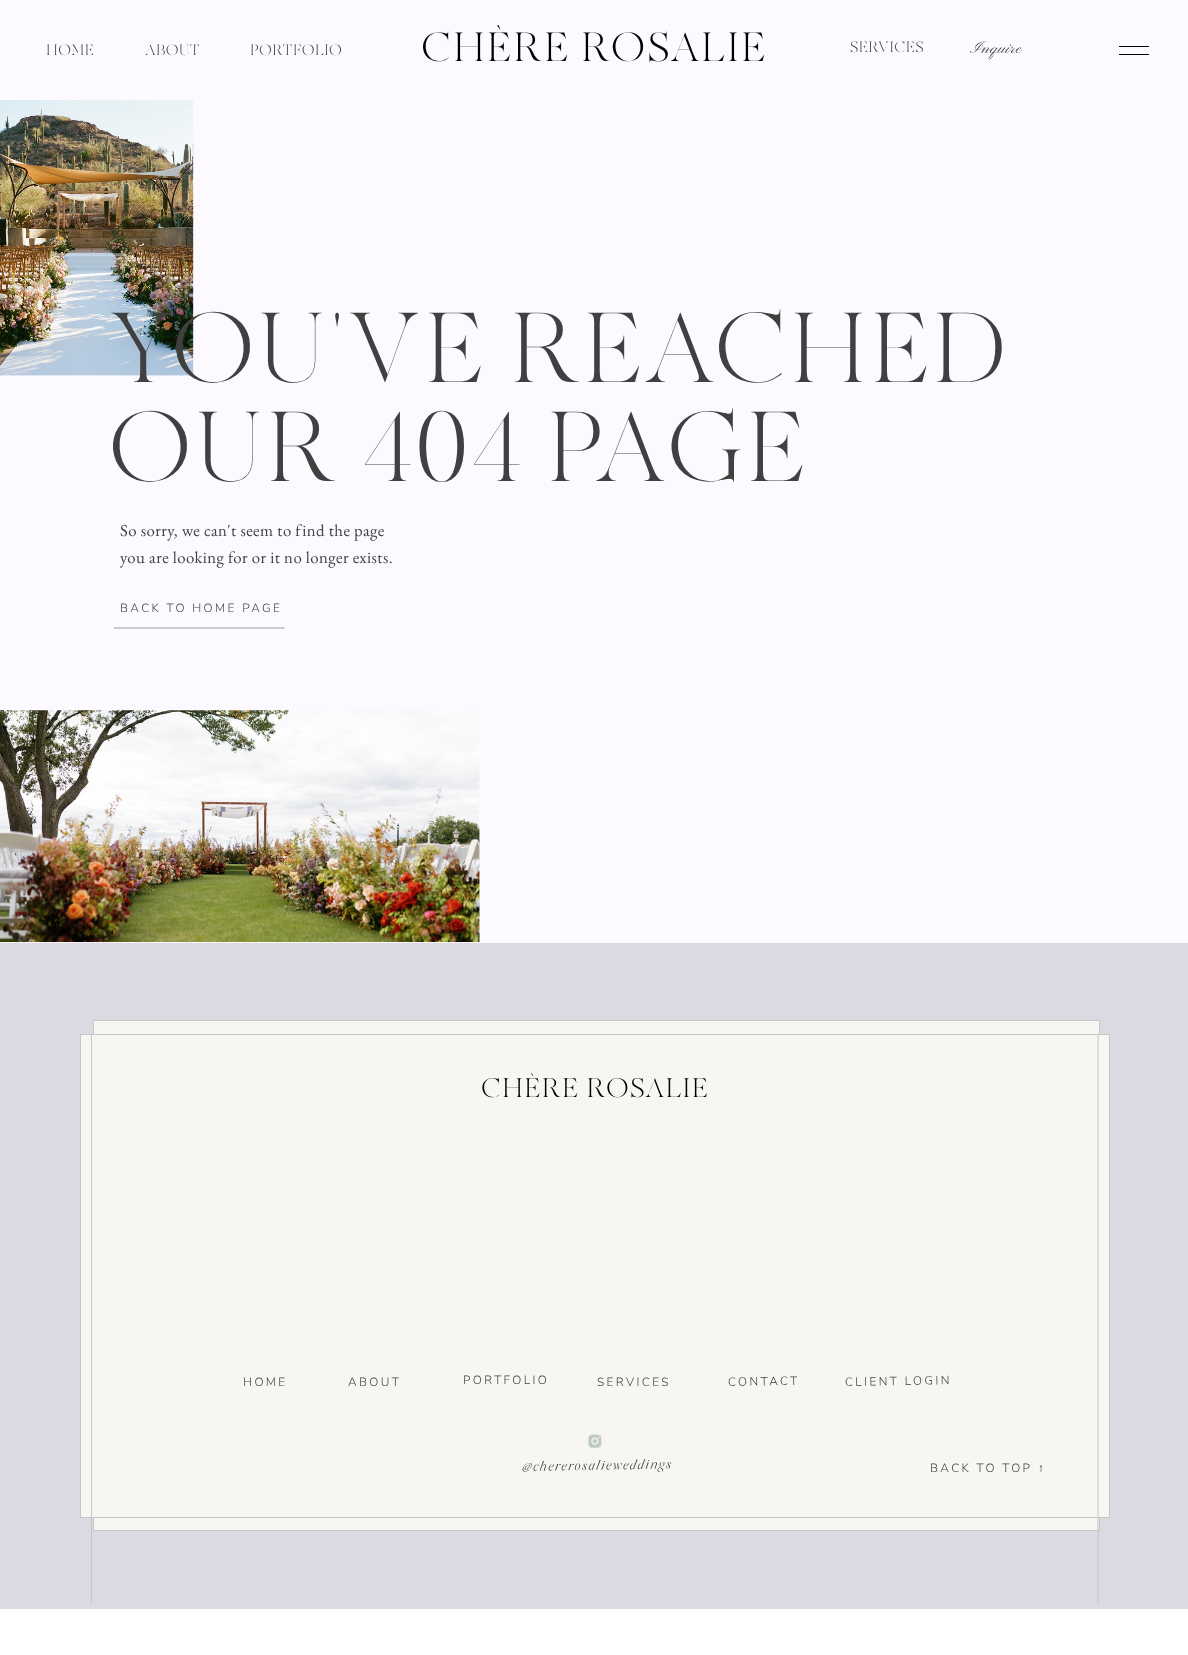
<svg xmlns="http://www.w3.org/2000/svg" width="1188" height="1655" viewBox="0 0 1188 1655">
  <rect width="100%" height="100%" fill="#ffffff"/>
  <rect x="0" y="1" width="1188" height="942" fill="#fdfaff"/>
  <text x="46" y="55" font-family="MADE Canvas" font-size="15" font-weight="300" letter-spacing="0.4" fill="#404040">HOME</text>
  <text x="145" y="55" font-family="MADE Canvas" font-size="15" font-weight="300" letter-spacing="0.4" fill="#404040">ABOUT</text>
  <text x="250" y="55" font-family="MADE Canvas" font-size="15" font-weight="300" letter-spacing="0.4" fill="#404040">PORTFOLIO</text>
  <text x="421" y="61" font-family="MADE Canvas" font-size="40.6" font-weight="300" letter-spacing="2" fill="#000000">CHÈRE ROSALIE</text>
  <text x="850" y="52" font-family="MADE Canvas" font-size="15" font-weight="300" letter-spacing="0.4" fill="#404040">SERVICES</text>
  <text x="970" y="53" font-family="Pinyon Script" font-size="16.8" letter-spacing="0.4" fill="#404040">Inquire</text>
  <rect x="1119" y="46" width="30" height="1" fill="#000000"/>
  <rect x="1119" y="54" width="30" height="1" fill="#000000"/>
  <image x="0" y="100" width="194" height="276" href="img1.png"/>
  <text x="108" y="382" font-family="MADE Canvas" font-size="99" font-weight="300" letter-spacing="2.5" fill="#404040">YOU'VE REACHED</text>
  <text x="108" y="481" font-family="MADE Canvas" font-size="99" font-weight="300" letter-spacing="2.5" fill="#404040">OUR 404 PAGE</text>
  <text x="120" y="536" font-family="EB Garamond" font-size="16.8" letter-spacing="0.4" fill="#404040">So sorry, we can't seem to find the page</text>
  <text x="120" y="563" font-family="EB Garamond" font-size="16.8" letter-spacing="0.4" fill="#404040">you are looking for or it no longer exists.</text>
  <text x="120" y="612" font-family="Nunito Sans" font-size="11.9" font-weight="200" letter-spacing="2.4" fill="#404040">BACK TO HOME PAGE</text>
  <path d="M114 628H284.5" fill="none" stroke="#9f9da0"/>
  <image x="0" y="710" width="480" height="233" href="img2.png"/>
  <rect x="0" y="943" width="1188" height="666" fill="#ddd9e3"/>
  <rect x="93.5" y="1020.5" width="1006" height="510" fill="#f7f6f1" stroke="#c0c9c6"/>
  <rect x="80.5" y="1034.5" width="1029" height="483" fill="#f7f6f1" stroke="#c0c9c6"/>
  <rect x="91" y="1035" width="1" height="569" fill="#c0c9c6"/>
  <text x="481" y="1097" font-family="MADE Canvas" font-size="26.75" font-weight="300" letter-spacing="1.3" fill="#000000">CHÈRE ROSALIE</text>
  <path d="M1098 1034.5V1604" fill="none" stroke="#c0c9c6"/>
  <text x="243" y="1386" font-family="Nunito Sans" font-size="11.9" font-weight="200" letter-spacing="2.4" fill="#404040">HOME</text>
  <text x="348" y="1386" font-family="Nunito Sans" font-size="11.9" font-weight="200" letter-spacing="2.4" fill="#404040">ABOUT</text>
  <text x="463" y="1384" font-family="Nunito Sans" font-size="11.9" font-weight="200" letter-spacing="2.4" fill="#404040">PORTFOLIO</text>
  <text x="597" y="1386" font-family="Nunito Sans" font-size="11.9" font-weight="200" letter-spacing="2.4" fill="#404040">SERVICES</text>
  <text x="728" y="1386" transform="rotate(-1 728 1386)" font-family="Nunito Sans" font-size="11.9" font-weight="200" letter-spacing="2.4" fill="#404040">CONTACT</text>
  <text x="845" y="1386" transform="rotate(-1 845 1386)" font-family="Nunito Sans" font-size="11.9" font-weight="200" letter-spacing="2.4" fill="#404040">CLIENT LOGIN</text>
  <image x="588" y="1434" width="14" height="14" href="img3.png"/>
  <text x="522" y="1471" transform="rotate(-1 522 1471)" font-family="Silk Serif" font-size="13.9" font-weight="300" font-style="italic" letter-spacing="1" fill="#404040">@chererosalieweddings</text>
  <text x="930" y="1472" font-family="Nunito Sans" font-size="11.9" font-weight="200" letter-spacing="2.4" fill="#404040">BACK TO TOP</text>
  <text x="1038" y="1472" font-family="Liberation Serif" font-size="11.9" letter-spacing="2.4" fill="#404040">↑</text>
</svg>
